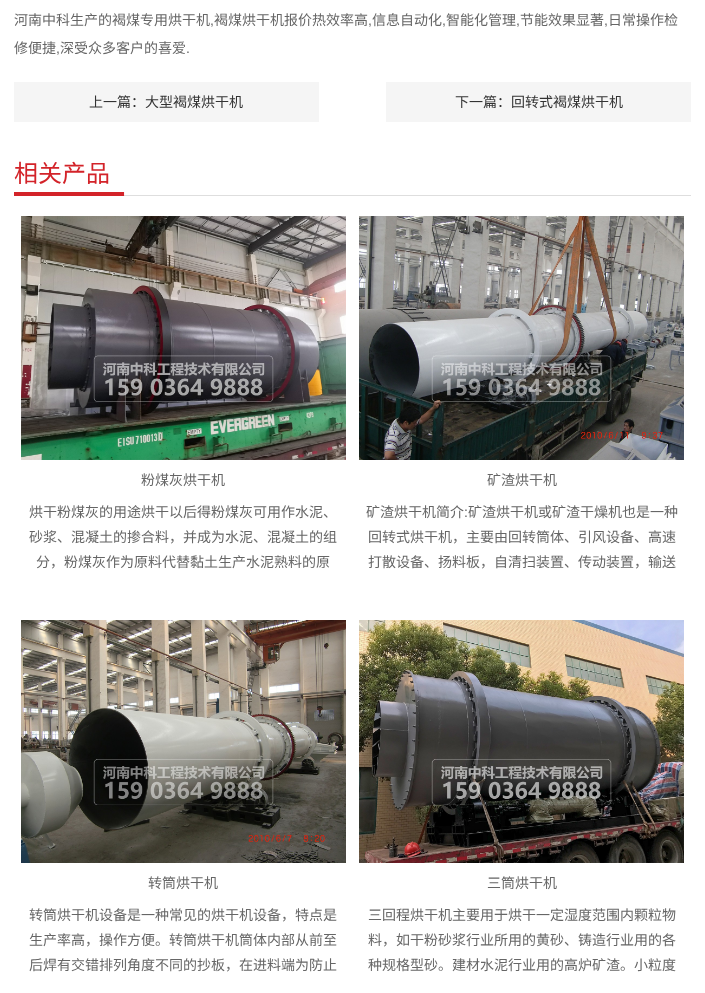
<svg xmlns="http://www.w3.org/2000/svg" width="705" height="993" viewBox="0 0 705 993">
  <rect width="100%" height="100%" fill="#ffffff"/>
  <text x="14" y="25" font-family="Noto Sans CJK SC" font-size="14" fill="#666666">河南中科生产的褐煤专用烘干机</text>
  <text x="210" y="25" font-family="Liberation Sans" font-size="14" fill="#666666">,</text>
  <text x="214" y="25" font-family="Noto Sans CJK SC" font-size="14" fill="#666666">褐煤烘干机报价热效率高</text>
  <text x="368" y="25" font-family="Liberation Sans" font-size="14" fill="#666666">,</text>
  <text x="372" y="25" font-family="Noto Sans CJK SC" font-size="14" fill="#666666">信息自动化</text>
  <text x="442" y="25" font-family="Liberation Sans" font-size="14" fill="#666666">,</text>
  <text x="446" y="25" font-family="Noto Sans CJK SC" font-size="14" fill="#666666">智能化管理</text>
  <text x="516" y="25" font-family="Liberation Sans" font-size="14" fill="#666666">,</text>
  <text x="520" y="25" font-family="Noto Sans CJK SC" font-size="14" fill="#666666">节能效果显著</text>
  <text x="604" y="25" font-family="Liberation Sans" font-size="14" fill="#666666">,</text>
  <text x="608" y="25" font-family="Noto Sans CJK SC" font-size="14" fill="#666666">日常操作检</text>
  <text x="14" y="53" font-family="Noto Sans CJK SC" font-size="14" fill="#666666">修便捷</text>
  <text x="56" y="53" font-family="Liberation Sans" font-size="14" fill="#666666">,</text>
  <text x="60" y="53" font-family="Noto Sans CJK SC" font-size="14" fill="#666666">深受众多客户的喜爱</text>
  <text x="186" y="53" font-family="Liberation Sans" font-size="14" fill="#666666">.</text>
  <rect x="14" y="82" width="305" height="40" fill="#f5f5f5"/>
  <text x="89" y="107" font-family="Noto Sans CJK SC" font-size="14" fill="#333333">上一篇：大型褐煤烘干机</text>
  <rect x="386" y="82" width="305" height="40" fill="#f5f5f5"/>
  <text x="455" y="107" font-family="Noto Sans CJK SC" font-size="14" fill="#333333">下一篇：回转式褐煤烘干机</text>
  <image x="14" y="192" width="677" height="4" href="img1.png"/>
  <text x="14" y="182" font-family="Noto Sans CJK SC" font-size="24" fill="#d32329">相关产品</text>
  <image x="21" y="216" width="325" height="244" href="img2.png"/>
  <text x="141" y="485" font-family="Noto Sans CJK SC" font-size="14" fill="#666666">粉煤灰烘干机</text>
  <text x="29" y="517" font-family="Noto Sans CJK SC" font-size="14" fill="#666666">烘干粉煤灰的用途烘干以后得粉煤灰可用作水泥、</text>
  <text x="29" y="542" font-family="Noto Sans CJK SC" font-size="14" fill="#666666">砂浆、混凝土的掺合料，并成为水泥、混凝土的组</text>
  <text x="36" y="567" font-family="Noto Sans CJK SC" font-size="14" fill="#666666">分，粉煤灰作为原料代替黏土生产水泥熟料的原</text>
  <image x="359" y="216" width="325" height="244" href="img3.png"/>
  <text x="487" y="485" font-family="Noto Sans CJK SC" font-size="14" fill="#666666">矿渣烘干机</text>
  <text x="366" y="517" font-family="Noto Sans CJK SC" font-size="14" fill="#666666">矿渣烘干机简介</text>
  <text x="464" y="517" font-family="Liberation Sans" font-size="14" fill="#666666">:</text>
  <text x="468" y="517" font-family="Noto Sans CJK SC" font-size="14" fill="#666666">矿渣烘干机或矿渣干燥机也是一种</text>
  <text x="368" y="542" font-family="Noto Sans CJK SC" font-size="14" fill="#666666">回转式烘干机，主要由回转筒体、引风设备、高速</text>
  <text x="368" y="567" font-family="Noto Sans CJK SC" font-size="14" fill="#666666">打散设备、扬料板，自清扫装置、传动装置，输送</text>
  <image x="21" y="620" width="325" height="243" href="img4.png"/>
  <text x="148" y="888" font-family="Noto Sans CJK SC" font-size="14" fill="#666666">转筒烘干机</text>
  <text x="29" y="920" font-family="Noto Sans CJK SC" font-size="14" fill="#666666">转筒烘干机设备是一种常见的烘干机设备，特点是</text>
  <text x="29" y="945" font-family="Noto Sans CJK SC" font-size="14" fill="#666666">生产率高，操作方便。转筒烘干机筒体内部从前至</text>
  <text x="29" y="970" font-family="Noto Sans CJK SC" font-size="14" fill="#666666">后焊有交错排列角度不同的抄板，在进料端为防止</text>
  <image x="359" y="620" width="325" height="243" href="img5.png"/>
  <text x="487" y="888" font-family="Noto Sans CJK SC" font-size="14" fill="#666666">三筒烘干机</text>
  <text x="368" y="920" font-family="Noto Sans CJK SC" font-size="14" fill="#666666">三回程烘干机主要用于烘干一定湿度范围内颗粒物</text>
  <text x="368" y="945" font-family="Noto Sans CJK SC" font-size="14" fill="#666666">料，如干粉砂浆行业所用的黄砂、铸造行业用的各</text>
  <text x="368" y="970" font-family="Noto Sans CJK SC" font-size="14" fill="#666666">种规格型砂。建材水泥行业用的高炉矿渣。小粒度</text>
</svg>
